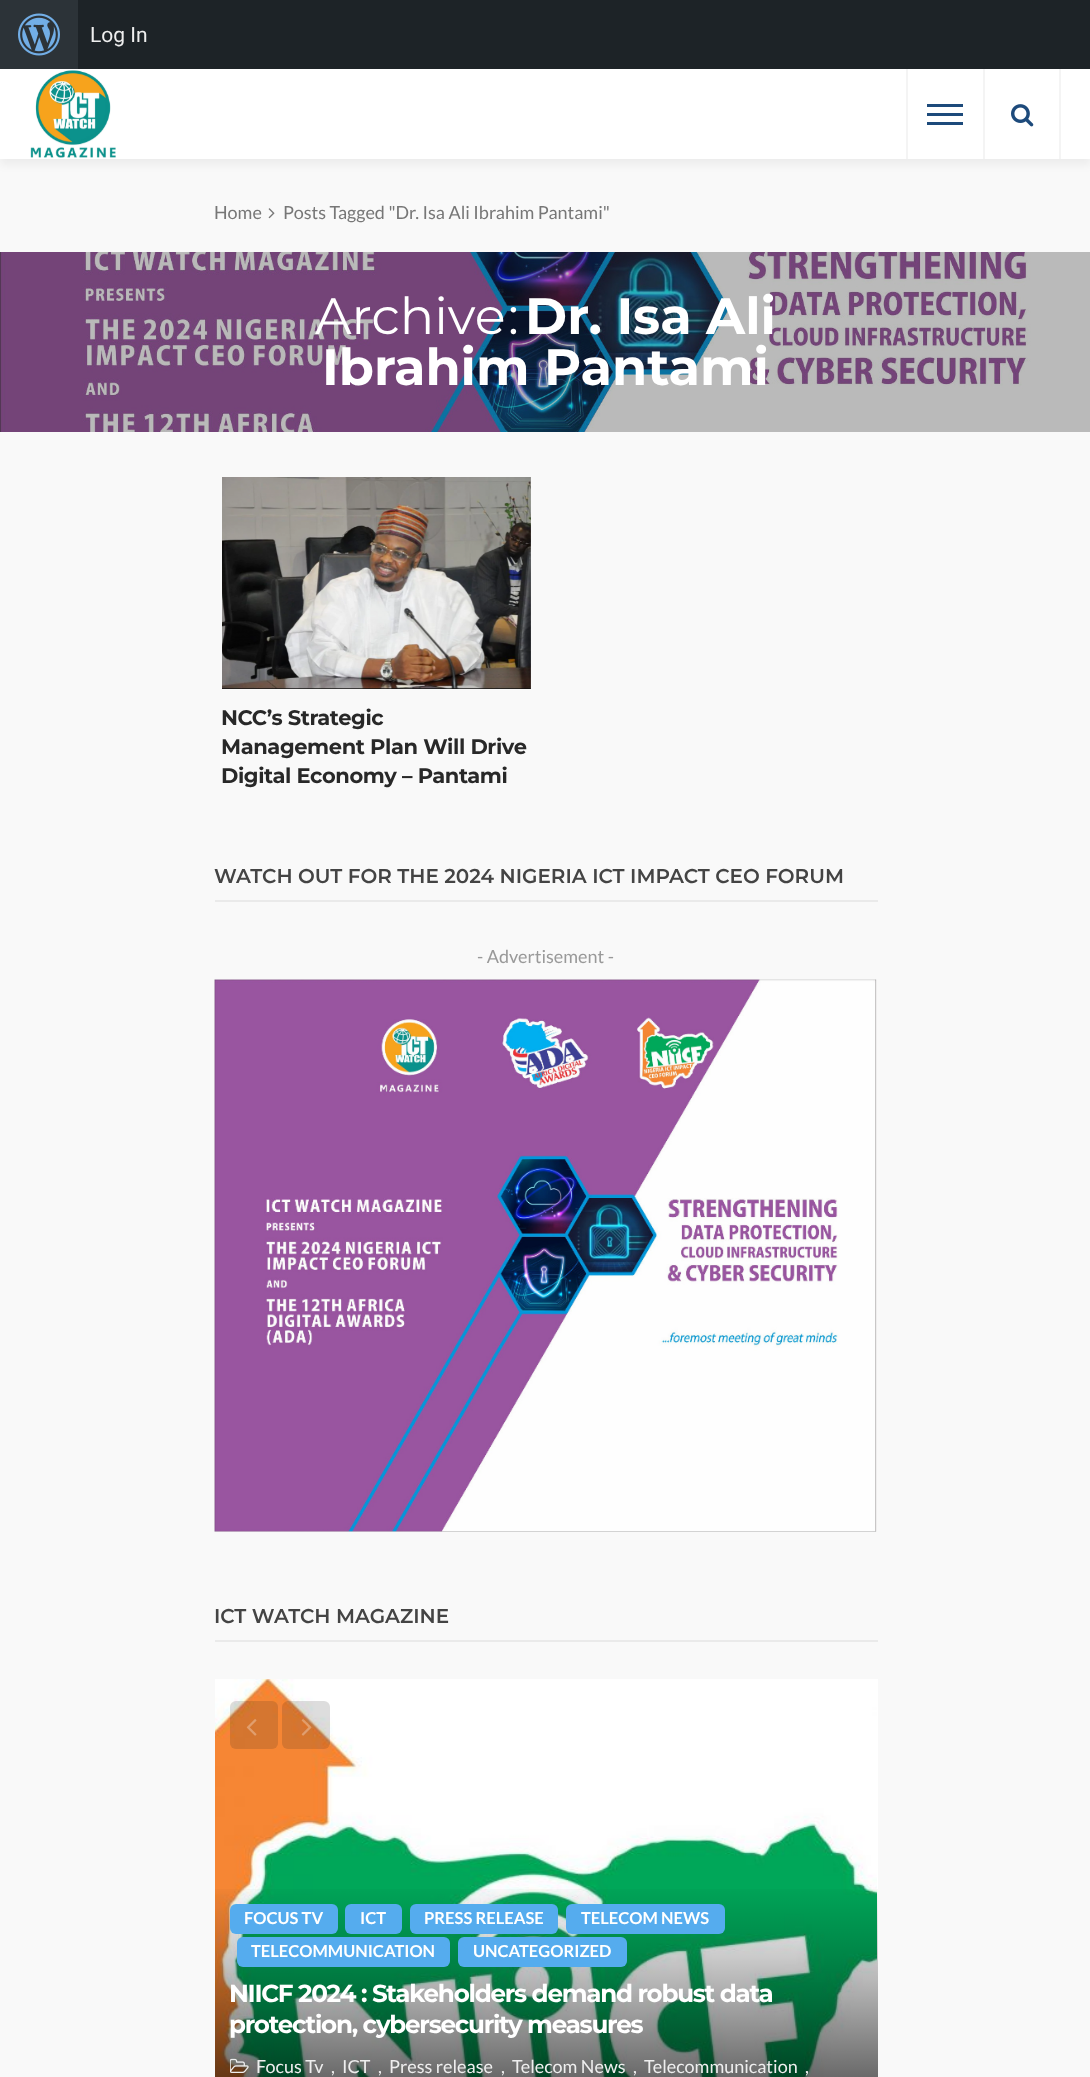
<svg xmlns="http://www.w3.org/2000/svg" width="1090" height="2077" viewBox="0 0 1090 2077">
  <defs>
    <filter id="blur1" x="-50%" y="-200%" width="200%" height="500%"><feGaussianBlur stdDeviation="4.5"/></filter>
    <linearGradient id="g1" gradientUnits="userSpaceOnUse" x1="546" y1="1881" x2="546" y2="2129"><stop offset="0" stop-color="#000000" stop-opacity="0"/><stop offset="0.3" stop-color="#000000" stop-opacity="0.2"/><stop offset="1" stop-color="#000000" stop-opacity="0.75"/></linearGradient>
  </defs>
  <rect width="100%" height="100%" fill="#f9f9f9"/>
  <rect x="0" y="75" width="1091" height="90" fill="#1c1c1c" fill-opacity="0.05" filter="url(#blur1)"/>
  <rect x="78" y="0" width="1012" height="69" fill="#1d2327"/>
  <rect x="0" y="0" width="78" height="69" fill="#2c3338"/>
  <image x="18" y="13" width="42" height="43" href="img1.png"/>
  <text x="90" y="42" font-family="Roboto" font-size="21" fill="#eeeeee">Log In</text>
  <rect x="0" y="69" width="1090" height="90" fill="#ffffff"/>
  <image x="30" y="70" width="86" height="88" href="img2.png"/>
  <rect x="1059" y="69" width="2" height="90" fill="#f4f4f4"/>
  <rect x="906" y="69" width="2" height="90" fill="#f4f4f4"/>
  <rect x="983" y="69" width="2" height="90" fill="#f4f4f4"/>
  <rect x="927" y="113" width="36" height="3" fill="#1d4a7b"/>
  <rect x="927" y="104" width="36" height="3" fill="#1d4a7b"/>
  <rect x="927" y="122" width="36" height="3" fill="#1d4a7b"/>
  <image x="1011" y="104" width="23" height="23" href="img3.png"/>
  <text x="214" y="219" font-family="Lato" font-size="18" fill="#777777">Home</text>
  <image x="268" y="208" width="7" height="11" href="img4.png"/>
  <text x="283" y="219" font-family="Lato" font-size="18" fill="#777777">Posts Tagged "Dr. Isa Ali Ibrahim Pantami"</text>
  <image x="0" y="252" width="1090" height="180" href="img5.png"/>
  <text x="315" y="334" font-family="Montserrat" font-size="51" fill="#ffffff">Archive</text>
  <text x="508" y="334" font-family="Montserrat" font-size="51" fill="#ffffff">:</text>
  <text x="525" y="334" font-family="Montserrat" font-size="51" font-weight="bold" fill="#ffffff">Dr. Isa Ali</text>
  <text x="322" y="385" font-family="Montserrat" font-size="51" font-weight="bold" fill="#ffffff">Ibrahim Pantami</text>
  <image x="222" y="477" width="309" height="212" href="img6.png"/>
  <text x="221" y="725" font-family="Montserrat" font-size="21" font-weight="bold" letter-spacing="-0.4" fill="#282828">NCC’s Strategic</text>
  <text x="221" y="754" font-family="Montserrat" font-size="21" font-weight="bold" letter-spacing="-0.4" fill="#282828">Management Plan Will Drive</text>
  <text x="221" y="783" font-family="Montserrat" font-size="21" font-weight="bold" letter-spacing="-0.4" fill="#282828">Digital Economy – Pantami</text>
  <rect x="215" y="900" width="663" height="2" fill="#eaeaea"/>
  <text x="214" y="883" font-family="Montserrat" font-size="19.95" font-weight="600" fill="#444444">WATCH OUT FOR THE 2024 NIGERIA ICT IMPACT CEO FORUM</text>
  <text x="477" y="963" font-family="Lato" font-size="18" fill="#999999">- Advertisement -</text>
  <image x="214" y="979" width="663" height="553" href="img7.png"/>
  <rect x="215" y="1640" width="663" height="2" fill="#eaeaea"/>
  <text x="214" y="1623" font-family="Montserrat" font-size="19.95" font-weight="600" fill="#444444">ICT WATCH MAGAZINE</text>
  <image x="215" y="1679" width="662" height="398" href="img10.png"/>
  <rect x="230" y="1701" width="48" height="48" rx="6" fill="#1c1c1c" fill-opacity="0.15"/>
  <image x="246" y="1719" width="11" height="17" href="img8.png"/>
  <rect x="282" y="1701" width="48" height="48" rx="6" fill="#1c1c1c" fill-opacity="0.15"/>
  <image x="301" y="1719" width="11" height="17" href="img9.png"/>
  <rect x="877" y="1679" width="1" height="398" fill="#ffffff"/>
  <rect x="215" y="1889" width="663" height="188" fill="url(#g1)"/>
  <rect x="230" y="1904" width="108" height="30" rx="6" fill="#55acee"/>
  <text x="244" y="1924" font-family="Lato" font-size="16.5" font-weight="bold" fill="#ffffff">FOCUS TV</text>
  <rect x="345" y="1904" width="57" height="30" rx="6" fill="#55acee"/>
  <text x="360" y="1924" font-family="Lato" font-size="16.5" font-weight="bold" fill="#ffffff">ICT</text>
  <rect x="410" y="1904" width="148" height="30" rx="6" fill="#55acee"/>
  <text x="424" y="1924" font-family="Lato" font-size="16.5" font-weight="bold" fill="#ffffff">PRESS RELEASE</text>
  <rect x="566" y="1904" width="159" height="30" rx="6" fill="#55acee"/>
  <text x="581" y="1924" font-family="Lato" font-size="16.5" font-weight="bold" fill="#ffffff">TELECOM NEWS</text>
  <rect x="237" y="1937" width="213" height="30" rx="6" fill="#55acee"/>
  <text x="251" y="1957" font-family="Lato" font-size="16.5" font-weight="bold" fill="#ffffff">TELECOMMUNICATION</text>
  <rect x="458" y="1937" width="169" height="30" rx="6" fill="#55acee"/>
  <text x="473" y="1957" font-family="Lato" font-size="16.5" font-weight="bold" fill="#ffffff">UNCATEGORIZED</text>
  <text x="229" y="2002" font-family="Montserrat" font-size="24.6" font-weight="bold" letter-spacing="-1.25" fill="#ffffff">NIICF 2024 : Stakeholders demand robust data</text>
  <text x="229" y="2033" font-family="Montserrat" font-size="24.6" font-weight="bold" letter-spacing="-1.25" fill="#ffffff">protection, cybersecurity measures</text>
  <image x="230" y="2058" width="19" height="15" href="img11.png"/>
  <text x="256" y="2073" font-family="Lato" font-size="18" fill="#eeeeee">Focus Tv</text>
  <text x="331" y="2073" font-family="Lato" font-size="18" fill="#eeeeee">,</text>
  <text x="342" y="2073" font-family="Lato" font-size="18" fill="#eeeeee">ICT</text>
  <text x="378" y="2073" font-family="Lato" font-size="18" fill="#eeeeee">,</text>
  <text x="389" y="2073" font-family="Lato" font-size="18" fill="#eeeeee">Press release</text>
  <text x="501" y="2073" font-family="Lato" font-size="18" fill="#eeeeee">,</text>
  <text x="512" y="2073" font-family="Lato" font-size="18" fill="#eeeeee">Telecom News</text>
  <text x="633" y="2073" font-family="Lato" font-size="18" fill="#eeeeee">,</text>
  <text x="644" y="2073" font-family="Lato" font-size="18" fill="#eeeeee">Telecommunication</text>
  <text x="805" y="2073" font-family="Lato" font-size="18" fill="#eeeeee">,</text>
</svg>
